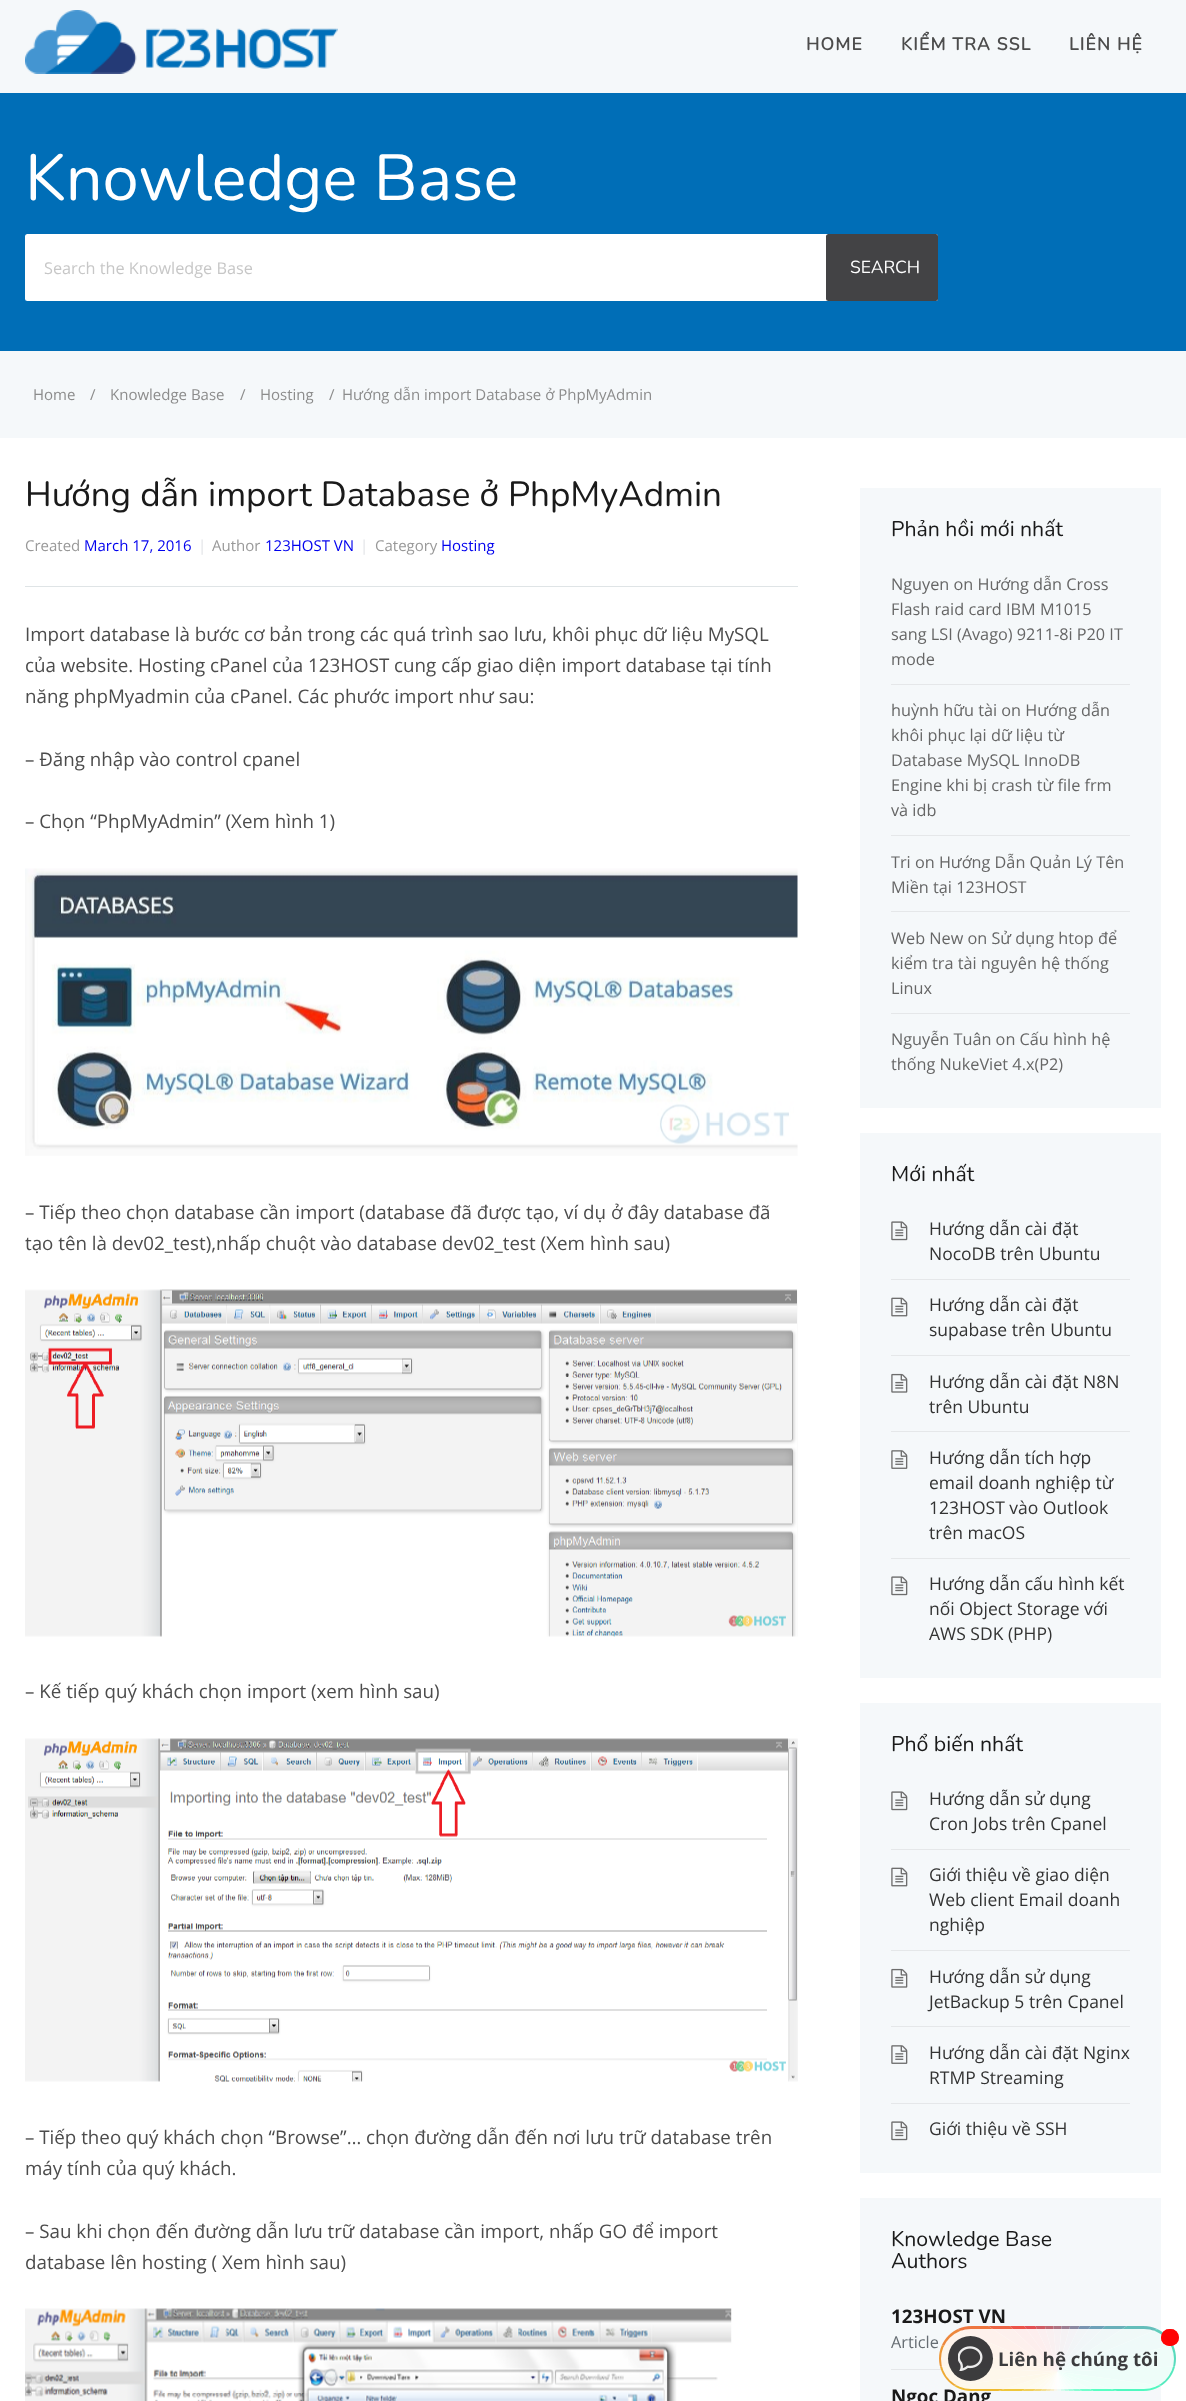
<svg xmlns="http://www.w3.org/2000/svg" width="1186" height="2401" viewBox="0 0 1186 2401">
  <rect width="100%" height="100%" fill="#ffffff"/>
  <rect x="0" y="0" width="1186" height="93" fill="#f5f8fa"/>
  <image x="25" y="10" width="313" height="64" href="img1.png"/>
  <text x="806" y="50" font-family="Nunito" font-size="17.5" font-weight="bold" letter-spacing="1.25" fill="#4c4c4c">HOME</text>
  <text x="901" y="50" font-family="Nunito" font-size="17.5" font-weight="bold" letter-spacing="1.25" fill="#4c4c4c">KIỂM TRA SSL</text>
  <text x="1069" y="50" font-family="Nunito" font-size="17.5" font-weight="bold" letter-spacing="1.25" fill="#4c4c4c">LIÊN HỆ</text>
  <rect x="0" y="93" width="1186" height="258" fill="#006eb7"/>
  <text x="25" y="200" font-family="Nunito" font-size="65" font-weight="200" fill="#ffffff">Knowledge Base</text>
  <rect x="25" y="234" width="913" height="67" rx="2.5" fill="#ffffff"/>
  <text x="44" y="274" font-family="Open Sans" font-size="16.25" fill="#c7c7c7">Search the Knowledge Base</text>
  <rect x="826" y="234" width="112" height="67" rx="2.5" fill="#434345"/>
  <text x="850" y="273" font-family="Nunito" font-size="17.5" font-weight="200" fill="#ffffff">SEARCH</text>
  <rect x="0" y="351" width="1186" height="87" fill="#f5f8fa"/>
  <text x="33" y="400" font-family="Open Sans" font-size="15" fill="#8c8c8c">Home</text>
  <text x="90" y="400" font-family="Open Sans" font-size="15" fill="#8c8c8c">/</text>
  <text x="110" y="400" font-family="Open Sans" font-size="15" fill="#8c8c8c">Knowledge Base</text>
  <text x="240" y="400" font-family="Open Sans" font-size="15" fill="#8c8c8c">/</text>
  <text x="260" y="400" font-family="Open Sans" font-size="15" fill="#8c8c8c">Hosting</text>
  <text x="329" y="400" font-family="Open Sans" font-size="15" fill="#8c8c8c">/</text>
  <text x="342" y="400" font-family="Open Sans" font-size="15" fill="#8c8c8c">Hướng dẫn import Database ở PhpMyAdmin</text>
  <rect x="25" y="586" width="773" height="1" fill="#dfe4e6"/>
  <text x="25" y="506" font-family="Nunito" font-size="35" font-weight="200" fill="#1a1a1a">Hướng dẫn import Database ở PhpMyAdmin</text>
  <text x="25" y="551" font-family="Open Sans" font-size="15" fill="#999999">Created</text>
  <text x="84" y="551" font-family="Open Sans" font-size="15" fill="#0000ee">March 17, 2016</text>
  <text x="198" y="551" font-family="Open Sans" font-size="15" fill="#e1e3e6">|</text>
  <text x="212" y="551" font-family="Open Sans" font-size="15" fill="#999999">Author</text>
  <text x="265" y="551" font-family="Open Sans" font-size="15" fill="#0000ee">123HOST VN</text>
  <text x="360" y="551" font-family="Open Sans" font-size="15" fill="#e1e3e6">|</text>
  <text x="375" y="551" font-family="Open Sans" font-size="15" fill="#999999">Category</text>
  <text x="441" y="551" font-family="Open Sans" font-size="15" fill="#0000ee">Hosting</text>
  <text x="25" y="641" font-family="Open Sans" font-size="18.75" fill="#4c4c4c">Import database là bước cơ bản trong các quá trình sao lưu, khôi phục dữ liệu MySQL</text>
  <text x="25" y="672" font-family="Open Sans" font-size="18.75" fill="#4c4c4c">của website. Hosting cPanel của 123HOST cung cấp giao diện import database tại tính</text>
  <text x="25" y="703" font-family="Open Sans" font-size="18.75" fill="#4c4c4c">năng phpMyadmin của cPanel. Các phước import như sau:</text>
  <text x="25" y="766" font-family="Open Sans" font-size="18.75" fill="#4c4c4c">– Đăng nhập vào control cpanel</text>
  <text x="25" y="828" font-family="Open Sans" font-size="18.75" fill="#4c4c4c">– Chọn “PhpMyAdmin” (Xem hình 1)</text>
  <image x="25" y="868" width="773" height="288" href="img2.png"/>
  <text x="25" y="1219" font-family="Open Sans" font-size="18.75" fill="#4c4c4c">– Tiếp theo chọn database cần import (database đã được tạo, ví dụ ở đây database đã</text>
  <text x="25" y="1250" font-family="Open Sans" font-size="18.75" fill="#4c4c4c">tạo tên là dev02_test),nhấp chuột vào database dev02_test (Xem hình sau)</text>
  <image x="25" y="1289" width="773" height="348" href="img3.png"/>
  <text x="25" y="1698" font-family="Open Sans" font-size="18.75" fill="#4c4c4c">– Kế tiếp quý khách chọn import (xem hình sau)</text>
  <image x="25" y="1738" width="773" height="344" href="img4.png"/>
  <text x="25" y="2144" font-family="Open Sans" font-size="18.75" fill="#4c4c4c">– Tiếp theo quý khách chọn “Browse”… chọn đường dẫn đến nơi lưu trữ database trên</text>
  <text x="25" y="2175" font-family="Open Sans" font-size="18.75" fill="#4c4c4c">máy tính của quý khách.</text>
  <text x="25" y="2238" font-family="Open Sans" font-size="18.75" fill="#4c4c4c">– Sau khi chọn đến đường dẫn lưu trữ database cần import, nhấp GO để import</text>
  <text x="25" y="2269" font-family="Open Sans" font-size="18.75" fill="#4c4c4c">database lên hosting ( Xem hình sau)</text>
  <image x="25" y="2308" width="707" height="93" href="img5.png"/>
  <rect x="860" y="488" width="301" height="620" fill="#f5f8fa"/>
  <text x="891" y="536" font-family="Nunito" font-size="21.25" font-weight="200" fill="#1a1a1a">Phản hồi mới nhất</text>
  <rect x="891" y="684" width="239" height="1" fill="#e5e7e9"/>
  <text x="891" y="590" font-family="Open Sans" font-size="16.25" fill="#666666">Nguyen on Hướng dẫn Cross</text>
  <text x="891" y="615" font-family="Open Sans" font-size="16.25" fill="#666666">Flash raid card IBM M1015</text>
  <text x="891" y="640" font-family="Open Sans" font-size="16.25" fill="#666666">sang LSI (Avago) 9211-8i P20 IT</text>
  <text x="891" y="665" font-family="Open Sans" font-size="16.25" fill="#666666">mode</text>
  <rect x="891" y="835" width="239" height="1" fill="#e5e7e9"/>
  <text x="891" y="716" font-family="Open Sans" font-size="16.25" fill="#666666">huỳnh hữu tài on Hướng dẫn</text>
  <text x="891" y="741" font-family="Open Sans" font-size="16.25" fill="#666666">khôi phục lại dữ liệu từ</text>
  <text x="891" y="766" font-family="Open Sans" font-size="16.25" fill="#666666">Database MySQL InnoDB</text>
  <text x="891" y="791" font-family="Open Sans" font-size="16.25" fill="#666666">Engine khi bị crash từ file frm</text>
  <text x="891" y="816" font-family="Open Sans" font-size="16.25" fill="#666666">và idb</text>
  <rect x="891" y="911" width="239" height="1" fill="#e5e7e9"/>
  <text x="891" y="868" font-family="Open Sans" font-size="16.25" fill="#666666">Tri on Hướng Dẫn Quản Lý Tên</text>
  <text x="891" y="893" font-family="Open Sans" font-size="16.25" fill="#666666">Miền tại 123HOST</text>
  <rect x="891" y="1013" width="239" height="1" fill="#e5e7e9"/>
  <text x="891" y="944" font-family="Open Sans" font-size="16.25" fill="#666666">Web New on Sử dụng htop để</text>
  <text x="891" y="969" font-family="Open Sans" font-size="16.25" fill="#666666">kiểm tra tài nguyên hệ thống</text>
  <text x="891" y="994" font-family="Open Sans" font-size="16.25" fill="#666666">Linux</text>
  <text x="891" y="1045" font-family="Open Sans" font-size="16.25" fill="#666666">Nguyễn Tuân on Cấu hình hệ</text>
  <text x="891" y="1070" font-family="Open Sans" font-size="16.25" fill="#666666">thống NukeViet 4.x(P2)</text>
  <rect x="860" y="1133" width="301" height="545" fill="#f5f8fa"/>
  <text x="891" y="1181" font-family="Nunito" font-size="21.25" font-weight="200" fill="#1a1a1a">Mới nhất</text>
  <rect x="891" y="1279" width="239" height="1" fill="#e5e7e9"/>
  <image x="891" y="1221" width="17" height="20" href="img6.png"/>
  <text x="929" y="1235" font-family="Open Sans" font-size="17.5" fill="#333333">Hướng dẫn cài đặt</text>
  <text x="929" y="1260" font-family="Open Sans" font-size="17.5" fill="#333333">NocoDB trên Ubuntu</text>
  <rect x="891" y="1355" width="239" height="1" fill="#e5e7e9"/>
  <image x="891" y="1297" width="17" height="20" href="img7.png"/>
  <text x="929" y="1311" font-family="Open Sans" font-size="17.5" fill="#333333">Hướng dẫn cài đặt</text>
  <text x="929" y="1336" font-family="Open Sans" font-size="17.5" fill="#333333">supabase trên Ubuntu</text>
  <rect x="891" y="1431" width="239" height="1" fill="#e5e7e9"/>
  <image x="891" y="1373" width="17" height="20" href="img8.png"/>
  <text x="929" y="1388" font-family="Open Sans" font-size="17.5" fill="#333333">Hướng dẫn cài đặt N8N</text>
  <text x="929" y="1413" font-family="Open Sans" font-size="17.5" fill="#333333">trên Ubuntu</text>
  <rect x="891" y="1558" width="239" height="1" fill="#e5e7e9"/>
  <image x="891" y="1450" width="17" height="19" href="img9.png"/>
  <text x="929" y="1464" font-family="Open Sans" font-size="17.5" fill="#333333">Hướng dẫn tích hợp</text>
  <text x="929" y="1489" font-family="Open Sans" font-size="17.5" fill="#333333">email doanh nghiệp từ</text>
  <text x="929" y="1514" font-family="Open Sans" font-size="17.5" fill="#333333">123HOST vào Outlook</text>
  <text x="929" y="1539" font-family="Open Sans" font-size="17.5" fill="#333333">trên macOS</text>
  <image x="891" y="1576" width="17" height="20" href="img6.png"/>
  <text x="929" y="1590" font-family="Open Sans" font-size="17.5" fill="#333333">Hướng dẫn cấu hình kết</text>
  <text x="929" y="1615" font-family="Open Sans" font-size="17.5" fill="#333333">nối Object Storage với</text>
  <text x="929" y="1640" font-family="Open Sans" font-size="17.5" fill="#333333">AWS SDK (PHP)</text>
  <rect x="860" y="1703" width="301" height="470" fill="#f5f8fa"/>
  <text x="891" y="1751" font-family="Nunito" font-size="21.25" font-weight="200" fill="#1a1a1a">Phổ biến nhất</text>
  <rect x="891" y="1849" width="239" height="1" fill="#e5e7e9"/>
  <image x="891" y="1791" width="17" height="20" href="img6.png"/>
  <text x="929" y="1805" font-family="Open Sans" font-size="17.5" fill="#333333">Hướng dẫn sử dụng</text>
  <text x="929" y="1830" font-family="Open Sans" font-size="17.5" fill="#333333">Cron Jobs trên Cpanel</text>
  <rect x="891" y="1950" width="239" height="1" fill="#e5e7e9"/>
  <image x="891" y="1867" width="17" height="20" href="img7.png"/>
  <text x="929" y="1881" font-family="Open Sans" font-size="17.5" fill="#333333">Giới thiệu về giao diện</text>
  <text x="929" y="1906" font-family="Open Sans" font-size="17.5" fill="#333333">Web client Email doanh</text>
  <text x="929" y="1931" font-family="Open Sans" font-size="17.5" fill="#333333">nghiệp</text>
  <rect x="891" y="2026" width="239" height="1" fill="#e5e7e9"/>
  <image x="891" y="1968" width="17" height="20" href="img8.png"/>
  <text x="929" y="1983" font-family="Open Sans" font-size="17.5" fill="#333333">Hướng dẫn sử dụng</text>
  <text x="929" y="2008" font-family="Open Sans" font-size="17.5" fill="#333333">JetBackup 5 trên Cpanel</text>
  <rect x="891" y="2103" width="239" height="1" fill="#e5e7e9"/>
  <image x="891" y="2045" width="17" height="19" href="img9.png"/>
  <text x="929" y="2059" font-family="Open Sans" font-size="17.5" fill="#333333">Hướng dẫn cài đặt Nginx</text>
  <text x="929" y="2084" font-family="Open Sans" font-size="17.5" fill="#333333">RTMP Streaming</text>
  <image x="891" y="2121" width="17" height="20" href="img6.png"/>
  <text x="929" y="2135" font-family="Open Sans" font-size="17.5" fill="#333333">Giới thiệu về SSH</text>
  <rect x="860" y="2198" width="301" height="203" fill="#f5f8fa"/>
  <text x="891" y="2246" font-family="Nunito" font-size="21.25" font-weight="200" fill="#1a1a1a">Knowledge Base</text>
  <text x="891" y="2268" font-family="Nunito" font-size="21.25" font-weight="200" fill="#1a1a1a">Authors</text>
  <rect x="891" y="2369" width="228" height="1" fill="#e5e7e9"/>
  <text x="891" y="2323" font-family="Open Sans" font-size="18.75" font-weight="bold" fill="#1a1a1a">123HOST VN</text>
  <text x="891" y="2348" font-family="Open Sans" font-size="16.25" fill="#666d73">Article</text>
  <text x="891" y="2403" font-family="Open Sans" font-size="18.75" font-weight="bold" fill="#1a1a1a">Ngoc Dang</text>
  <image x="939" y="2326" width="237" height="65" href="img10.png"/>
  <rect x="941" y="2329" width="233" height="60" rx="30" fill="#ffffff" fill-opacity="0.9"/>
  <circle cx="970.5" cy="2358.5" r="22.5" fill="#27272a" fill-opacity="0.9"/>
  <image x="958" y="2346" width="25" height="25" href="img11.png"/>
  <text x="998" y="2366" font-family="Open Sans" font-size="18.75" font-weight="bold" fill="#3c3c3e">Liên hệ chúng tôi</text>
  <rect x="1161" y="2329" width="18" height="17" rx="8.5" fill="#ff0000" fill-opacity="0.9"/>
  <rect x="1161" y="2329" width="18" height="17" rx="8.5" fill="#ff0000" fill-opacity="0.81"/>
</svg>
